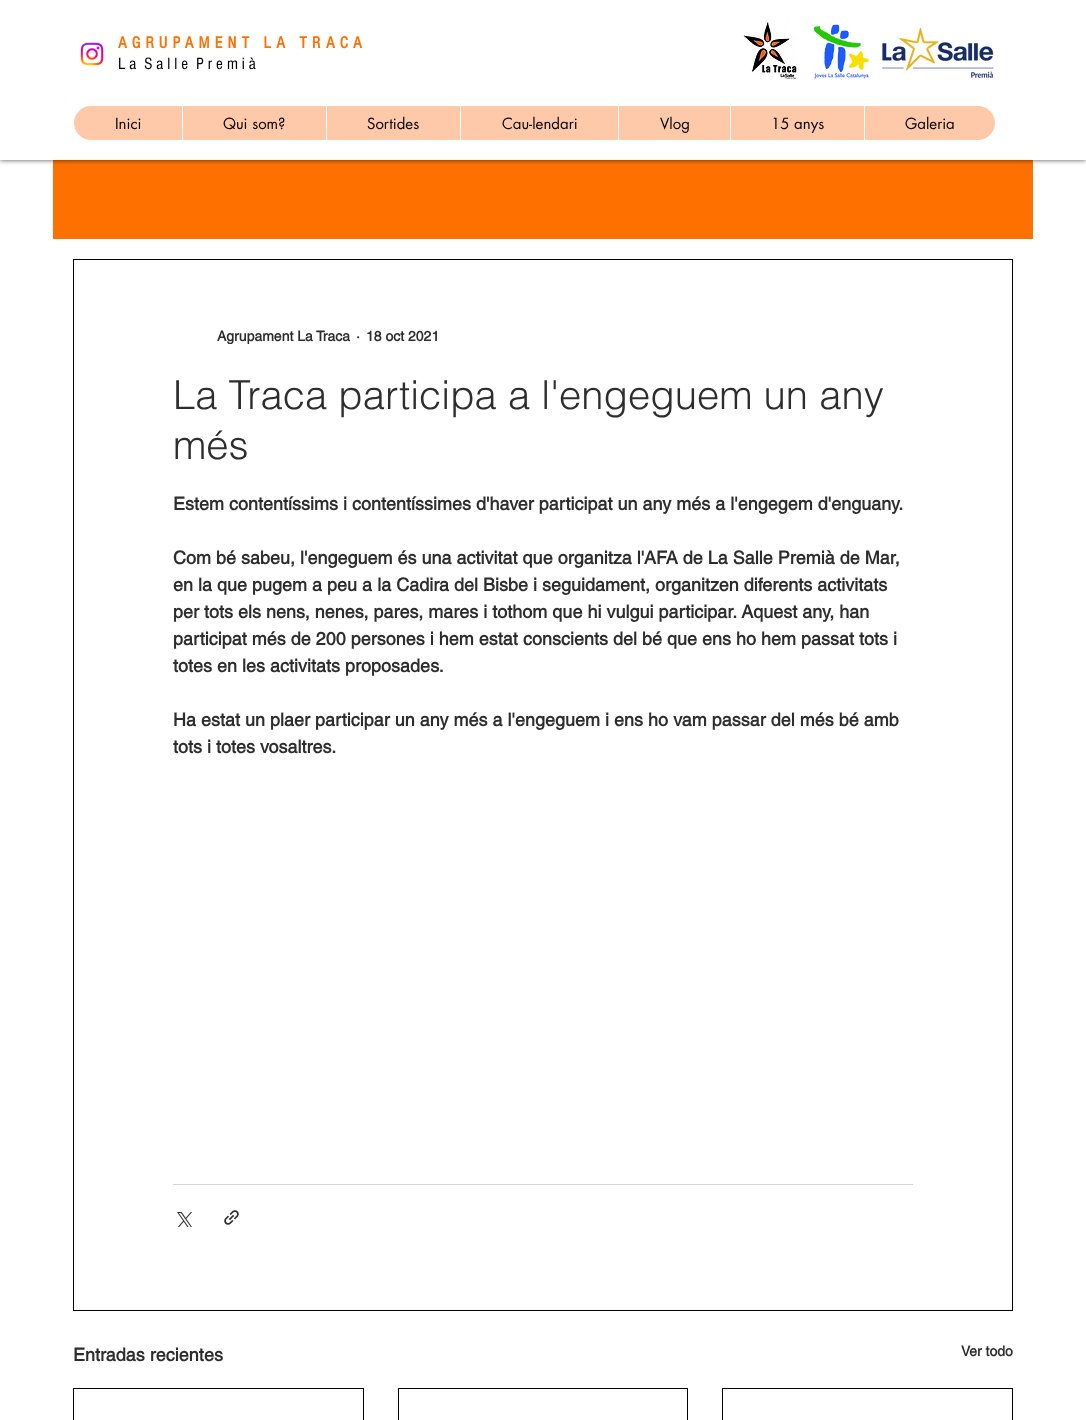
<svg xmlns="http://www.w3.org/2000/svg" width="1086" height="1420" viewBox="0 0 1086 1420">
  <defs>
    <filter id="blur1" x="-50%" y="-200%" width="200%" height="500%"><feGaussianBlur stdDeviation="2.5"/></filter>
  </defs>
  <rect width="100%" height="100%" fill="#ffffff"/>
  <rect x="53" y="160" width="980" height="79" fill="#fe7101"/>
  <rect x="0" y="0" width="1086" height="160" fill="#000000" fill-opacity="0.7" filter="url(#blur1)"/>
  <rect x="0" y="0" width="1086" height="160" fill="#ffffff"/>
  <image x="80" y="42" width="24" height="24" href="img1.png"/>
  <text x="118" y="48" font-family="'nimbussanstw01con'" font-size="17" font-weight="bold" letter-spacing="5.1" fill="#fe7101">AGRUPAMENT LA TRACA</text>
  <text x="118" y="69" font-family="'nimbussanstw01con'" font-size="17" fill="#000000" xml:space="preserve">L a  S a l l e  P r e m i à</text>
  <image x="741" y="19" width="56" height="60" href="img2.png"/>
  <image x="813" y="24" width="56" height="55" href="img3.png"/>
  <image x="882" y="27" width="112" height="51" href="img4.png"/>
  <rect x="74" y="106" width="921" height="34" rx="17" fill="#fec9a8"/>
  <text x="115" y="129" font-family="futura" font-size="15" fill="#000000">Inici</text>
  <rect x="182" y="106" width="1" height="34" fill="#ffffff"/>
  <text x="223" y="129" font-family="futura" font-size="15" fill="#000000">Qui som?</text>
  <rect x="326" y="106" width="1" height="34" fill="#ffffff"/>
  <text x="367" y="129" font-family="futura" font-size="15" fill="#000000">Sortides</text>
  <rect x="460" y="106" width="1" height="34" fill="#ffffff"/>
  <text x="502" y="129" font-family="futura" font-size="15" fill="#000000">Cau-lendari</text>
  <rect x="618" y="106" width="1" height="34" fill="#ffffff"/>
  <text x="660" y="129" font-family="futura" font-size="15" fill="#000000">Vlog</text>
  <rect x="730" y="106" width="1" height="34" fill="#ffffff"/>
  <text x="771" y="129" font-family="futura" font-size="15" fill="#000000">15 anys</text>
  <rect x="864" y="106" width="1" height="34" fill="#ffffff"/>
  <text x="905" y="129" font-family="futura" font-size="15" fill="#000000">Galeria</text>
  <rect x="73.5" y="259.5" width="939" height="1051" fill="none" stroke="#000000"/>
  <text x="217" y="341" font-family="helvetica" font-size="14" font-weight="bold" fill="#2d2d2d">Agrupament La Traca</text>
  <text x="356" y="341" font-family="helvetica" font-size="14" font-weight="bold" fill="#2d2d2d">·</text>
  <text x="366" y="341" font-family="helvetica" font-size="14" font-weight="bold" fill="#2d2d2d">18 oct 2021</text>
  <text x="173" y="409" font-family="helvetica" font-size="40" font-weight="300" fill="#2d2d2d">La Traca participa a l'engeguem un any</text>
  <text x="173" y="459" font-family="helvetica" font-size="40" font-weight="300" fill="#2d2d2d">més</text>
  <text x="173" y="510" font-family="helvetica" font-size="18" font-weight="bold" fill="#2d2d2d">Estem contentíssims i contentíssimes d'haver participat un any més a l'engegem d'enguany.</text>
  <text x="173" y="564" font-family="helvetica" font-size="18" font-weight="bold" fill="#2d2d2d">Com bé sabeu, l'engeguem és una activitat que organitza l'AFA de La Salle Premià de Mar,</text>
  <text x="173" y="591" font-family="helvetica" font-size="18" font-weight="bold" fill="#2d2d2d">en la que pugem a peu a la Cadira del Bisbe i seguidament, organitzen diferents activitats</text>
  <text x="173" y="618" font-family="helvetica" font-size="18" font-weight="bold" fill="#2d2d2d">per tots els nens, nenes, pares, mares i tothom que hi vulgui participar. Aquest any, han</text>
  <text x="173" y="645" font-family="helvetica" font-size="18" font-weight="bold" fill="#2d2d2d">participat més de 200 persones i hem estat conscients del bé que ens ho hem passat tots i</text>
  <text x="173" y="672" font-family="helvetica" font-size="18" font-weight="bold" fill="#2d2d2d">totes en les activitats proposades.</text>
  <text x="173" y="726" font-family="helvetica" font-size="18" font-weight="bold" fill="#2d2d2d">Ha estat un plaer participar un any més a l'engeguem i ens ho vam passar del més bé amb</text>
  <text x="173" y="753" font-family="helvetica" font-size="18" font-weight="bold" fill="#2d2d2d">tots i totes vosaltres.</text>
  <rect x="173" y="1184" width="740" height="1" fill="#d5d5d5"/>
  <image x="177" y="1212" width="15" height="15" href="img5.png"/>
  <image x="224" y="1210" width="15" height="15" href="img6.png"/>
  <text x="73" y="1361" font-family="helvetica" font-size="18" font-weight="bold" fill="#2d2d2d">Entradas recientes</text>
  <text x="961" y="1356" font-family="helvetica" font-size="14" font-weight="bold" fill="#2d2d2d">Ver todo</text>
  <rect x="73.5" y="1388.5" width="290" height="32" fill="none" stroke="#000000"/>
  <rect x="398.5" y="1388.5" width="289" height="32" fill="none" stroke="#000000"/>
  <rect x="722.5" y="1388.5" width="290" height="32" fill="none" stroke="#000000"/>
</svg>
